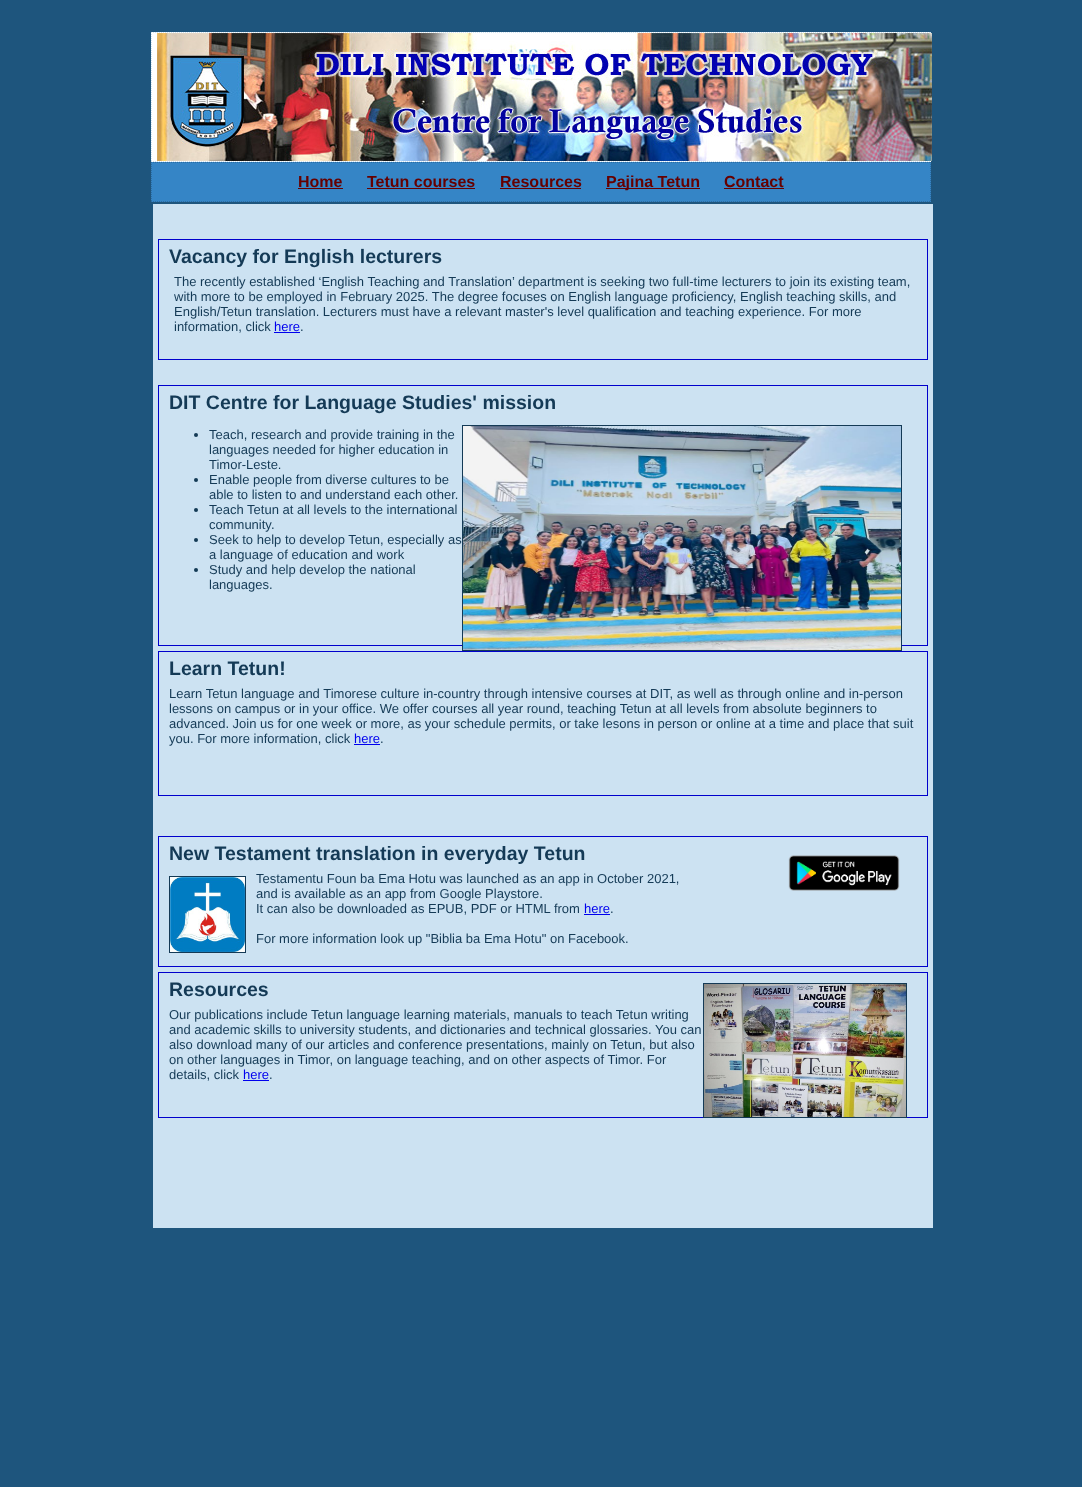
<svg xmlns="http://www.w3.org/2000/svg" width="1082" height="1487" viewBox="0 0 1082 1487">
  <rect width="100%" height="100%" fill="#1e557d"/>
  <rect x="151" y="32" width="780" height="130" fill="#ffffff"/>
  <path d="M151 32.5H931" fill="none" stroke="#cfe4f3" stroke-dasharray="1 1"/>
  <path d="M930.5 32V162" fill="none" stroke="#cfe4f3" stroke-dasharray="1 1"/>
  <path d="M151 161.5H931" fill="none" stroke="#cfe4f3" stroke-dasharray="1 1"/>
  <path d="M151.5 32V162" fill="none" stroke="#cfe4f3" stroke-dasharray="1 1"/>
  <image x="157" y="33" width="775" height="128" href="img1.png"/>
  <rect x="151" y="162" width="780" height="40" fill="#3585c6"/>
  <path d="M151 162.5H931" fill="none" stroke="#2c6da3" stroke-dasharray="1 1"/>
  <path d="M930.5 162V202" fill="none" stroke="#2c6da3" stroke-dasharray="1 1"/>
  <path d="M151 201.5H931" fill="none" stroke="#2c6da3" stroke-dasharray="1 1"/>
  <path d="M151.5 162V202" fill="none" stroke="#2c6da3" stroke-dasharray="1 1"/>
  <text x="298" y="187" font-family="Liberation Sans" font-size="16" font-weight="bold" fill="#660000">Home</text>
  <rect x="298" y="188" width="45" height="1" fill="#660000"/>
  <text x="367" y="187" font-family="Liberation Sans" font-size="16" font-weight="bold" fill="#660000">Tetun courses</text>
  <rect x="367" y="188" width="108" height="1" fill="#660000"/>
  <text x="500" y="187" font-family="Liberation Sans" font-size="16" font-weight="bold" fill="#660000">Resources</text>
  <rect x="500" y="188" width="81" height="1" fill="#660000"/>
  <rect x="606" y="188" width="94" height="1" fill="#660000"/>
  <text x="606" y="187" font-family="Liberation Sans" font-size="16" font-weight="bold" fill="#660000">Pajina Tetun</text>
  <text x="724" y="187" font-family="Liberation Sans" font-size="16" font-weight="bold" fill="#660000">Contact</text>
  <rect x="724" y="188" width="60" height="1" fill="#660000"/>
  <rect x="153" y="204" width="780" height="1024" fill="#cce2f2"/>
  <rect x="158.5" y="239.5" width="769" height="120" fill="none" stroke="#0000cc"/>
  <text x="169" y="263" font-family="Liberation Sans" font-size="19.5" font-weight="bold" fill="#143a56">Vacancy for English lecturers</text>
  <text x="174" y="286" font-family="Liberation Sans" font-size="13" fill="#143a56">The recently established ‘English Teaching and Translation’ department is seeking two full-time lecturers to join its existing team,</text>
  <text x="174" y="301" font-family="Liberation Sans" font-size="13" fill="#143a56">with more to be employed in February 2025. The degree focuses on English language proficiency, English teaching skills, and</text>
  <text x="174" y="316" font-family="Liberation Sans" font-size="13" fill="#143a56">English/Tetun translation. Lecturers must have a relevant master's level qualification and teaching experience. For more</text>
  <text x="174" y="331" font-family="Liberation Sans" font-size="13" fill="#143a56">information, click</text>
  <text x="274" y="331" font-family="Liberation Sans" font-size="13" fill="#0000ee">here</text>
  <rect x="274" y="332" width="26" height="1" fill="#0000ee"/>
  <text x="300" y="331" font-family="Liberation Sans" font-size="13" fill="#143a56">.</text>
  <rect x="158.5" y="385.5" width="769" height="260" fill="none" stroke="#0000cc"/>
  <text x="169" y="409" font-family="Liberation Sans" font-size="19.5" font-weight="bold" fill="#143a56">DIT Centre for Language Studies' mission</text>
  <circle cx="196" cy="435" r="2" fill="#143a56"/>
  <text x="209" y="439" font-family="Liberation Sans" font-size="13" fill="#143a56">Teach, research and provide training in the</text>
  <text x="209" y="454" font-family="Liberation Sans" font-size="13" fill="#143a56">languages needed for higher education in</text>
  <text x="209" y="469" font-family="Liberation Sans" font-size="13" fill="#143a56">Timor-Leste.</text>
  <circle cx="196" cy="480" r="2" fill="#143a56"/>
  <text x="209" y="484" font-family="Liberation Sans" font-size="13" fill="#143a56">Enable people from diverse cultures to be</text>
  <text x="209" y="499" font-family="Liberation Sans" font-size="13" fill="#143a56">able to listen to and understand each other.</text>
  <circle cx="196" cy="510" r="2" fill="#143a56"/>
  <text x="209" y="514" font-family="Liberation Sans" font-size="13" fill="#143a56">Teach Tetun at all levels to the international</text>
  <text x="209" y="529" font-family="Liberation Sans" font-size="13" fill="#143a56">community.</text>
  <circle cx="196" cy="540" r="2" fill="#143a56"/>
  <text x="209" y="544" font-family="Liberation Sans" font-size="13" fill="#143a56">Seek to help to develop Tetun, especially as</text>
  <text x="209" y="559" font-family="Liberation Sans" font-size="13" fill="#143a56">a language of education and work</text>
  <circle cx="196" cy="570" r="2" fill="#143a56"/>
  <text x="209" y="574" font-family="Liberation Sans" font-size="13" fill="#143a56">Study and help develop the national</text>
  <text x="209" y="589" font-family="Liberation Sans" font-size="13" fill="#143a56">languages.</text>
  <rect x="462.5" y="425.5" width="439" height="225" fill="none" stroke="#143a56"/>
  <image x="463" y="426" width="438" height="224" href="img2.png"/>
  <rect x="158.5" y="651.5" width="769" height="144" fill="none" stroke="#0000cc"/>
  <text x="169" y="675" font-family="Liberation Sans" font-size="19.5" font-weight="bold" fill="#143a56">Learn Tetun!</text>
  <text x="169" y="698" font-family="Liberation Sans" font-size="13" fill="#143a56">Learn Tetun language and Timorese culture in-country through intensive courses at DIT, as well as through online and in-person</text>
  <text x="169" y="713" font-family="Liberation Sans" font-size="13" fill="#143a56">lessons on campus or in your office. We offer courses all year round, teaching Tetun at all levels from absolute beginners to</text>
  <text x="169" y="728" font-family="Liberation Sans" font-size="13" fill="#143a56">advanced. Join us for one week or more, as your schedule permits, or take lesons in person or online at a time and place that suit</text>
  <text x="169" y="743" font-family="Liberation Sans" font-size="13" fill="#143a56">you. For more information, click</text>
  <text x="354" y="743" font-family="Liberation Sans" font-size="13" fill="#0000ee">here</text>
  <rect x="354" y="744" width="26" height="1" fill="#0000ee"/>
  <text x="380" y="743" font-family="Liberation Sans" font-size="13" fill="#143a56">.</text>
  <rect x="158.5" y="836.5" width="769" height="130" fill="none" stroke="#0000cc"/>
  <text x="169" y="860" font-family="Liberation Sans" font-size="19.5" font-weight="bold" fill="#143a56">New Testament translation in everyday Tetun</text>
  <image x="788" y="855" width="112" height="36" href="img3.png"/>
  <rect x="169.5" y="876.5" width="76" height="76" fill="none" stroke="#143a56"/>
  <image x="170" y="877" width="75" height="75" href="img4.png"/>
  <text x="256" y="883" font-family="Liberation Sans" font-size="13" fill="#143a56">Testamentu Foun ba Ema Hotu was launched as an app in October 2021,</text>
  <text x="256" y="898" font-family="Liberation Sans" font-size="13" fill="#143a56">and is available as an app from Google Playstore.</text>
  <text x="256" y="913" font-family="Liberation Sans" font-size="13" fill="#143a56">It can also be downloaded as EPUB, PDF or HTML from</text>
  <text x="584" y="913" font-family="Liberation Sans" font-size="13" fill="#0000ee">here</text>
  <rect x="584" y="914" width="26" height="1" fill="#0000ee"/>
  <text x="610" y="913" font-family="Liberation Sans" font-size="13" fill="#143a56">.</text>
  <text x="256" y="943" font-family="Liberation Sans" font-size="13" fill="#143a56">For more information look up "Biblia ba Ema Hotu" on Facebook.</text>
  <rect x="158.5" y="972.5" width="769" height="145" fill="none" stroke="#0000cc"/>
  <text x="169" y="996" font-family="Liberation Sans" font-size="19.5" font-weight="bold" fill="#143a56">Resources</text>
  <rect x="703.5" y="983.5" width="203" height="134" fill="none" stroke="#143a56"/>
  <image x="704" y="984" width="202" height="133" href="img5.png"/>
  <text x="169" y="1019" font-family="Liberation Sans" font-size="13" fill="#143a56">Our publications include Tetun language learning materials, manuals to teach Tetun writing</text>
  <text x="169" y="1034" font-family="Liberation Sans" font-size="13" fill="#143a56">and academic skills to university students, and dictionaries and technical glossaries. You can</text>
  <text x="169" y="1049" font-family="Liberation Sans" font-size="13" fill="#143a56">also download many of our articles and conference presentations, mainly on Tetun, but also</text>
  <text x="169" y="1064" font-family="Liberation Sans" font-size="13" fill="#143a56">on other languages in Timor, on language teaching, and on other aspects of Timor. For</text>
  <text x="169" y="1079" font-family="Liberation Sans" font-size="13" fill="#143a56">details, click</text>
  <text x="243" y="1079" font-family="Liberation Sans" font-size="13" fill="#0000ee">here</text>
  <rect x="243" y="1080" width="26" height="1" fill="#0000ee"/>
  <text x="269" y="1079" font-family="Liberation Sans" font-size="13" fill="#143a56">.</text>
</svg>
